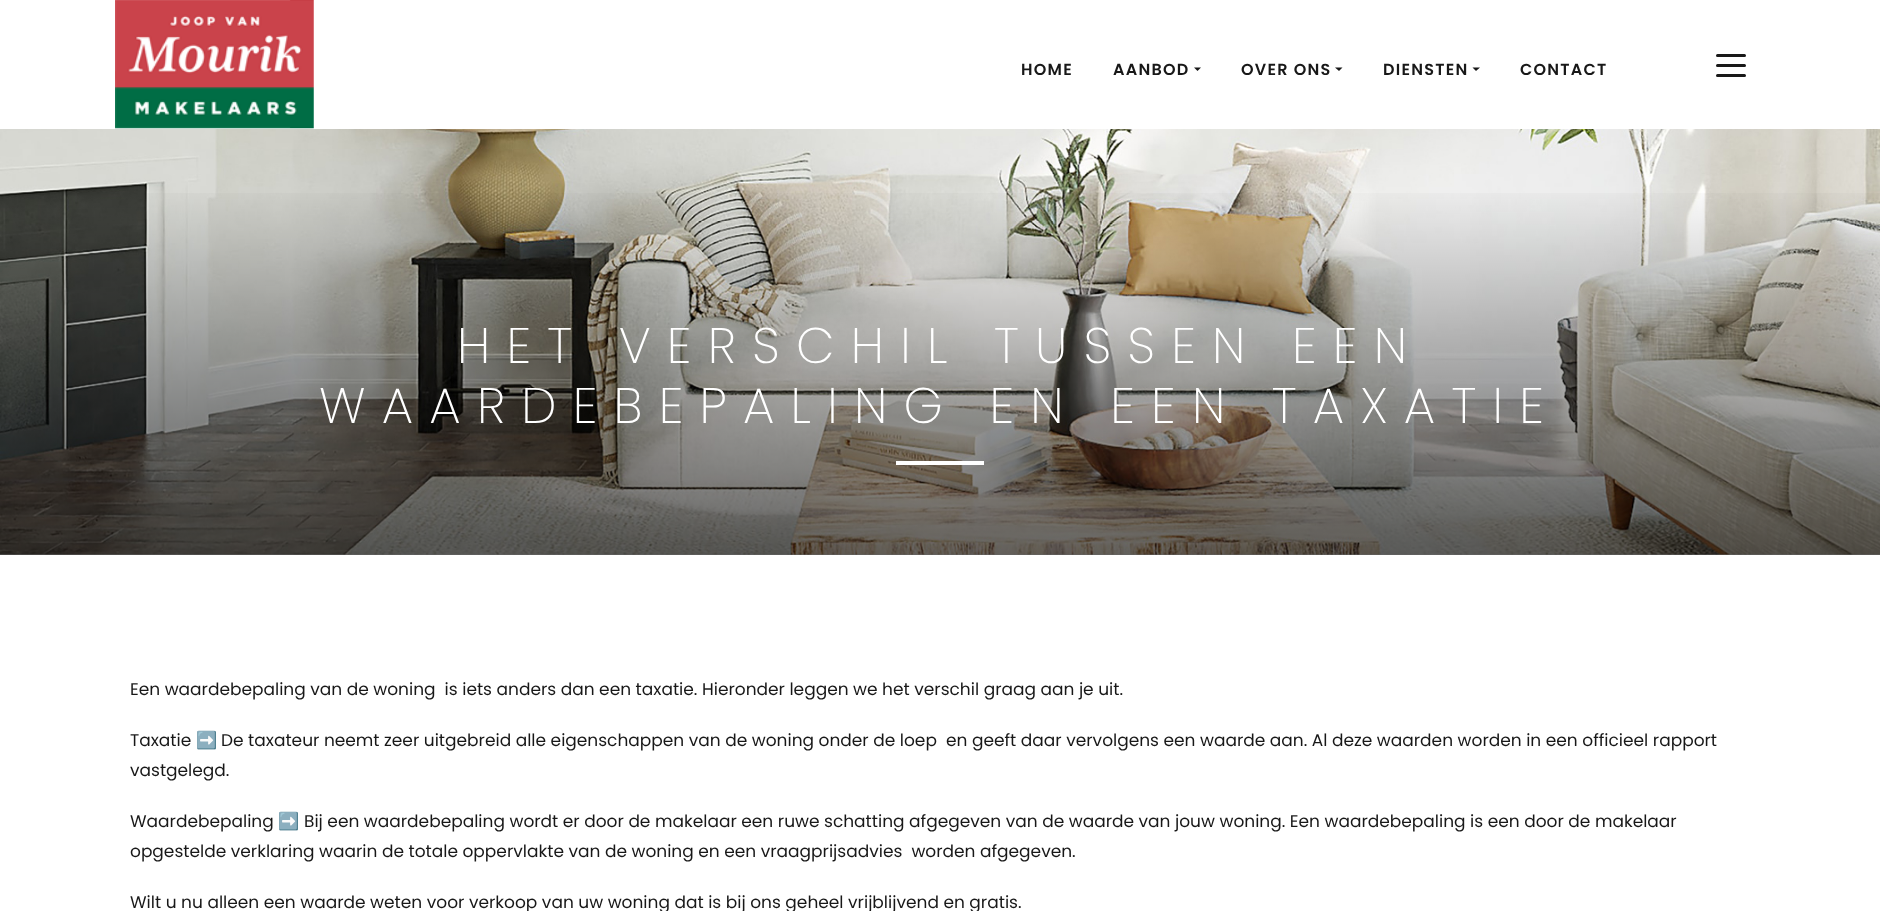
<svg xmlns="http://www.w3.org/2000/svg" width="1880" height="911" viewBox="0 0 1880 911">
  <defs>
    <linearGradient id="g1" gradientUnits="userSpaceOnUse" x1="940" y1="180" x2="940" y2="555"><stop offset="0" stop-color="#000000" stop-opacity="0"/><stop offset="1" stop-color="#000000" stop-opacity="0.6"/></linearGradient>
  </defs>
  <rect width="100%" height="100%" fill="#ffffff"/>
  <image x="115" y="0" width="199" height="129" href="img1.png"/>
  <text x="1021" y="75" font-family="Poppins" font-size="16" font-weight="600" letter-spacing="1.25" fill="#181818">HOME</text>
  <text x="1113" y="75" font-family="Poppins" font-size="16" font-weight="600" letter-spacing="1.25" fill="#181818">AANBOD</text>
  <path d="M1194 67.5H1201L1197.5 71Z" fill="#181818"/>
  <text x="1241" y="75" font-family="Poppins" font-size="16" font-weight="600" letter-spacing="1.25" fill="#181818">OVER ONS</text>
  <path d="M1335 67.5H1342.5L1339 71Z" fill="#181818"/>
  <text x="1383" y="75" font-family="Poppins" font-size="16" font-weight="600" letter-spacing="1.25" fill="#181818">DIENSTEN</text>
  <path d="M1472.5 67.5H1480L1476 71Z" fill="#181818"/>
  <text x="1520" y="75" font-family="Poppins" font-size="16" font-weight="600" letter-spacing="1.25" fill="#181818">CONTACT</text>
  <rect x="1716" y="54" width="30" height="3" rx="1.5" fill="#181818"/>
  <rect x="1716" y="64" width="30" height="3" rx="1.5" fill="#181818"/>
  <rect x="1716" y="74" width="30" height="3" rx="1.5" fill="#181818"/>
  <image x="0" y="129" width="1880" height="426" href="img2.png"/>
  <rect x="0" y="193" width="1880" height="362" fill="url(#g1)"/>
  <text x="457" y="363" font-family="Poppins" font-size="50" font-weight="200" letter-spacing="16.25" fill="#ffffff">HET VERSCHIL TUSSEN EEN</text>
  <text x="319" y="423" font-family="Poppins" font-size="50" font-weight="200" letter-spacing="16.25" fill="#ffffff">WAARDEBEPALING EN EEN TAXATIE</text>
  <rect x="896" y="461" width="88" height="4" fill="#ffffff"/>
  <text x="130" y="695" font-family="Poppins" font-size="17" fill="#181818" xml:space="preserve">Een waardebepaling van de woning  is iets anders dan een taxatie. Hieronder leggen we het verschil graag aan je uit.</text>
  <text x="130" y="746" font-family="Poppins" font-size="17" fill="#181818">Taxatie</text>
  <text x="196" y="746" font-family="Noto Color Emoji" font-size="17" fill="#181818">➡️</text>
  <text x="221" y="746" font-family="Poppins" font-size="17" fill="#181818" xml:space="preserve">De taxateur neemt zeer uitgebreid alle eigenschappen van de woning onder de loep  en geeft daar vervolgens een waarde aan. Al deze waarden worden in een officieel rapport</text>
  <text x="130" y="776" font-family="Poppins" font-size="17" fill="#181818">vastgelegd.</text>
  <text x="130" y="827" font-family="Poppins" font-size="17" fill="#181818">Waardebepaling</text>
  <text x="278" y="827" font-family="Noto Color Emoji" font-size="17" fill="#181818">➡️</text>
  <text x="304" y="827" font-family="Poppins" font-size="17" fill="#181818">Bij een waardebepaling wordt er door de makelaar een ruwe schatting afgegeven van de waarde van jouw woning. Een waardebepaling is een door de makelaar</text>
  <text x="130" y="857" font-family="Poppins" font-size="17" fill="#181818" xml:space="preserve">opgestelde verklaring waarin de totale oppervlakte van de woning en een vraagprijsadvies  worden afgegeven.</text>
  <text x="130" y="908" font-family="Poppins" font-size="17" fill="#181818">Wilt u nu alleen een waarde weten voor verkoop van uw woning dat is bij ons geheel vrijblijvend en gratis.</text>
</svg>
